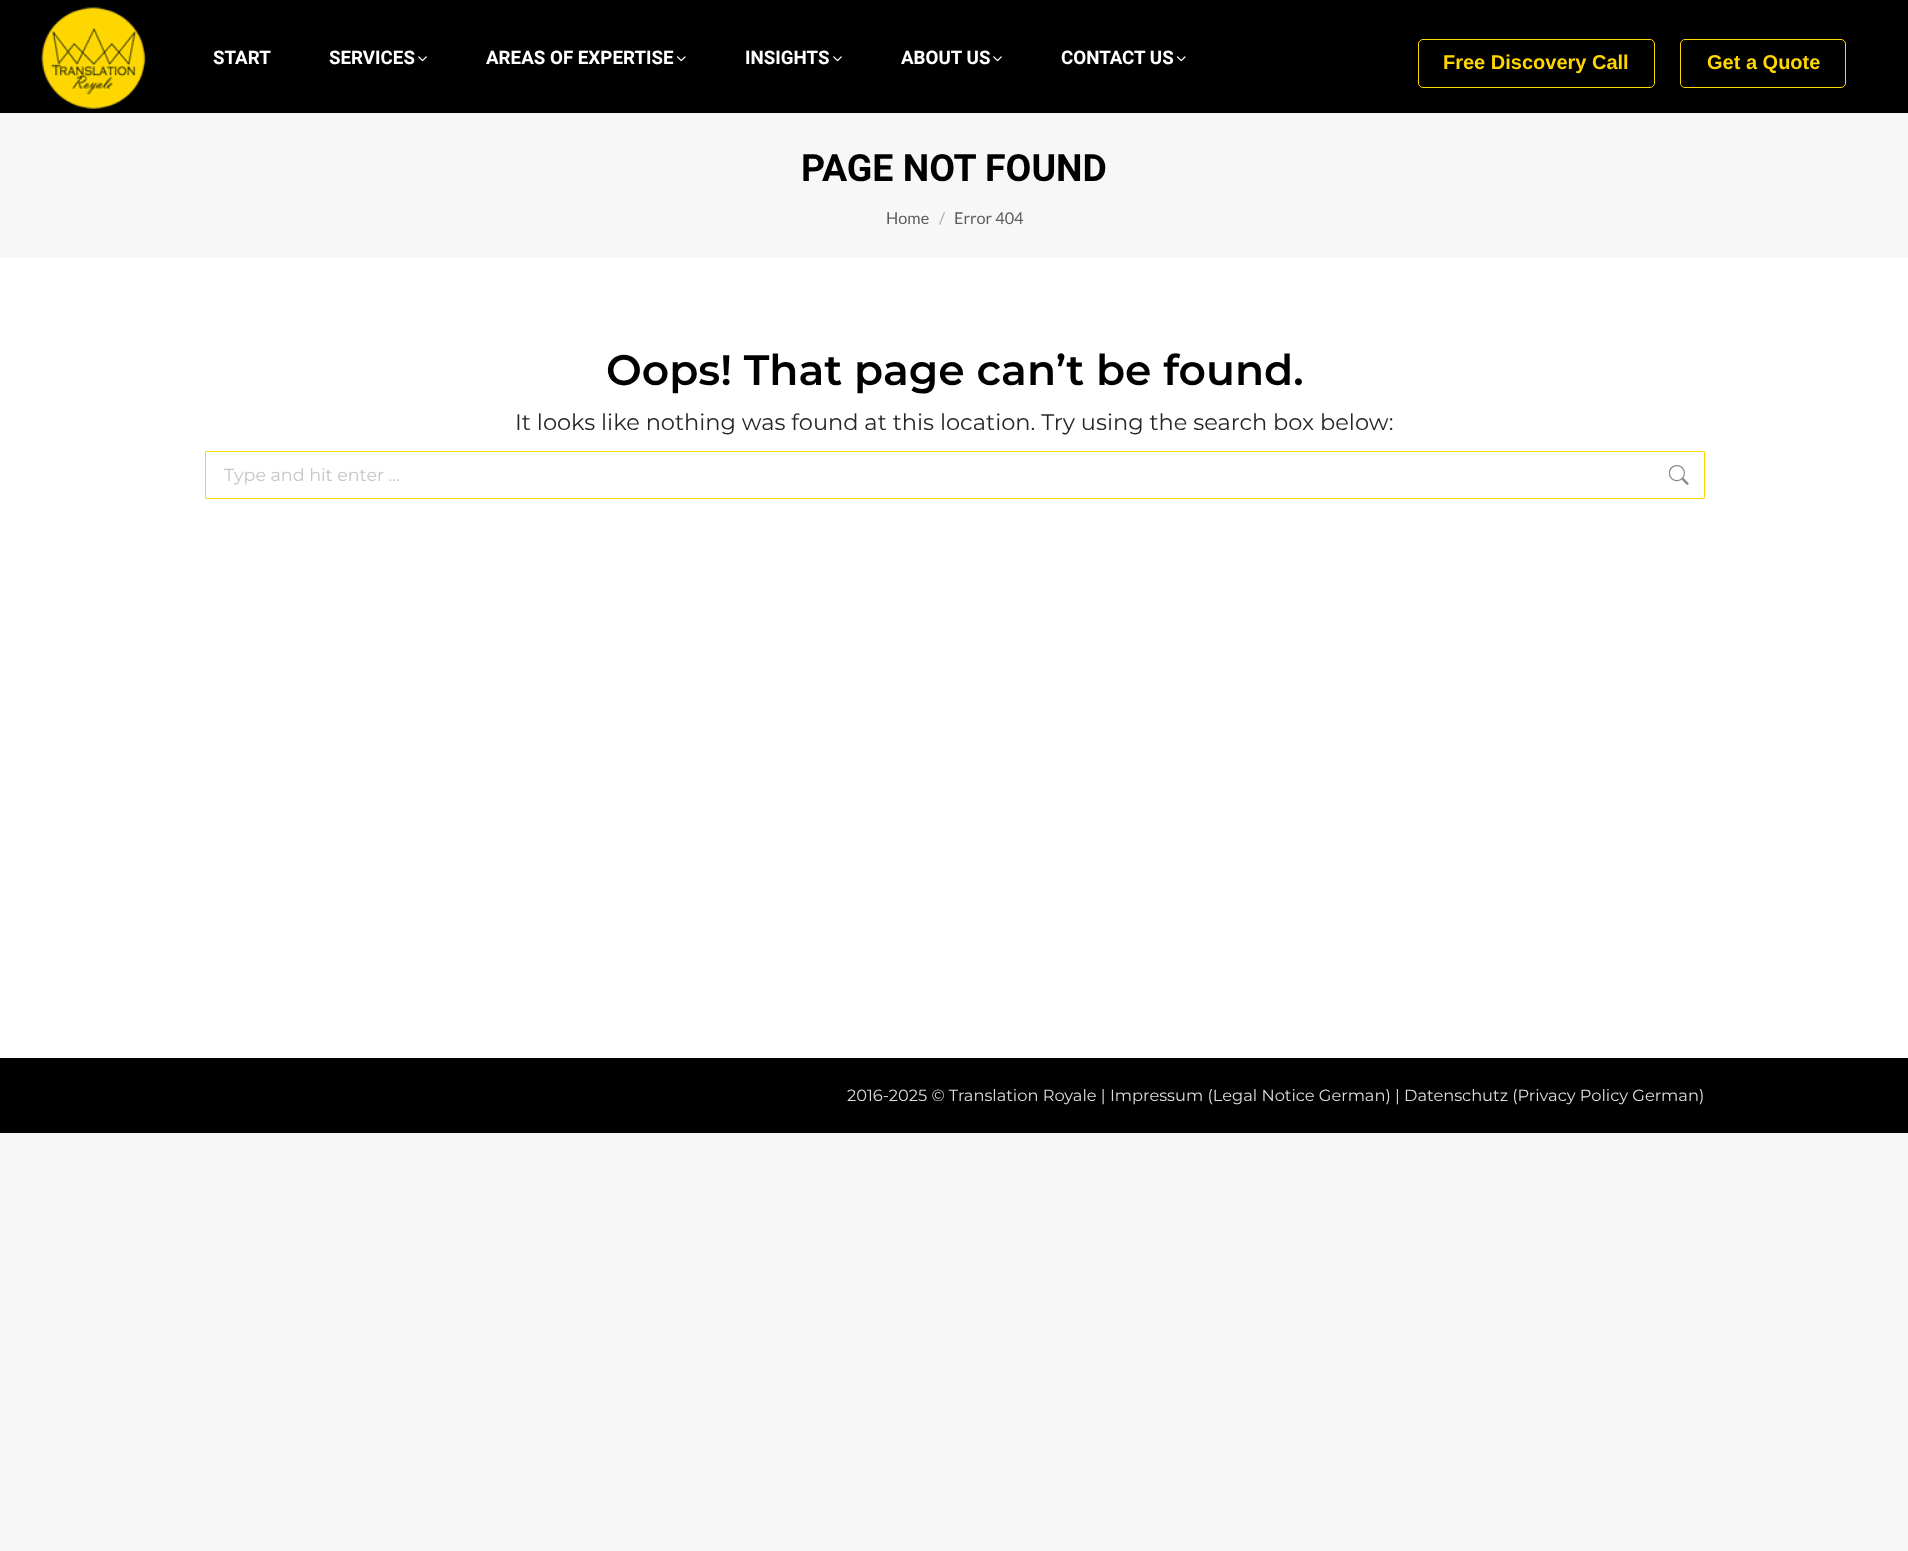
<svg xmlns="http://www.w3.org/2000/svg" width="1908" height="1551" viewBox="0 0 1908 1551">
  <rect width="100%" height="100%" fill="#f7f7f7"/>
  <rect x="0" y="258" width="1908" height="800" fill="#ffffff"/>
  <rect x="0" y="0" width="1908" height="113" fill="#000000"/>
  <image x="41" y="7" width="105" height="102" href="img1.png"/>
  <text x="213" y="64" font-family="Roboto" font-size="18.75" font-weight="bold" fill="#ffffff">START</text>
  <text x="329" y="64" font-family="Roboto" font-size="18.75" font-weight="bold" fill="#ffffff">SERVICES</text>
  <image x="418" y="56" width="9" height="6" href="img2.png"/>
  <text x="486" y="64" font-family="Roboto" font-size="18.75" font-weight="bold" fill="#ffffff">AREAS OF EXPERTISE</text>
  <image x="676" y="56" width="10" height="6" href="img3.png"/>
  <text x="745" y="64" font-family="Roboto" font-size="18.75" font-weight="bold" fill="#ffffff">INSIGHTS</text>
  <image x="833" y="56" width="9" height="6" href="img2.png"/>
  <text x="901" y="64" font-family="Roboto" font-size="18.75" font-weight="bold" fill="#ffffff">ABOUT US</text>
  <image x="993" y="56" width="9" height="6" href="img2.png"/>
  <text x="1061" y="64" font-family="Roboto" font-size="18.75" font-weight="bold" fill="#ffffff">CONTACT US</text>
  <image x="1176" y="56" width="10" height="6" href="img3.png"/>
  <rect x="1418.5" y="39.5" width="236" height="48" rx="4.5" fill="none" stroke="#ffd700"/>
  <text x="1443" y="69" font-family="Liberation Sans" font-size="20" font-weight="bold" fill="#ffd700">Free Discovery Call</text>
  <rect x="1680.5" y="39.5" width="165" height="48" rx="4.5" fill="none" stroke="#ffd700"/>
  <text x="1707" y="69" font-family="Liberation Sans" font-size="20" font-weight="bold" fill="#ffd700">Get a Quote</text>
  <text x="801" y="181" font-family="Roboto" font-size="37.5" font-weight="bold" fill="#000000">PAGE NOT FOUND</text>
  <text x="886" y="224" font-family="Lato" font-size="16.25" fill="#5e5e5e">Home</text>
  <text x="939" y="224" font-family="Lato" font-size="16.25" fill="#ababab">/</text>
  <text x="954" y="224" font-family="Lato" font-size="16.25" fill="#5e5e5e">Error 404</text>
  <text x="606" y="385" font-family="Montserrat" font-size="42.5" font-weight="600" fill="#000000">Oops! That page can’t be found.</text>
  <text x="515" y="430" font-family="Montserrat" font-size="22.5" fill="#262626">It looks like nothing was found at this location. Try using the search box below:</text>
  <rect x="205.5" y="451.5" width="1499" height="47" rx="0.5" fill="none" stroke="#ffd700"/>
  <text x="224" y="481" font-family="Montserrat" font-size="17.5" fill="#c4c5c9">Type and hit enter …</text>
  <image x="1669" y="465" width="20" height="20" href="img4.png"/>
  <rect x="0" y="1058" width="1908" height="75" fill="#000000"/>
  <text x="847" y="1101" font-family="Montserrat" font-size="16.25" fill="#dddddd">2016-2025 © Translation Royale | Impressum (Legal Notice German) | Datenschutz (Privacy Policy German)</text>
</svg>
